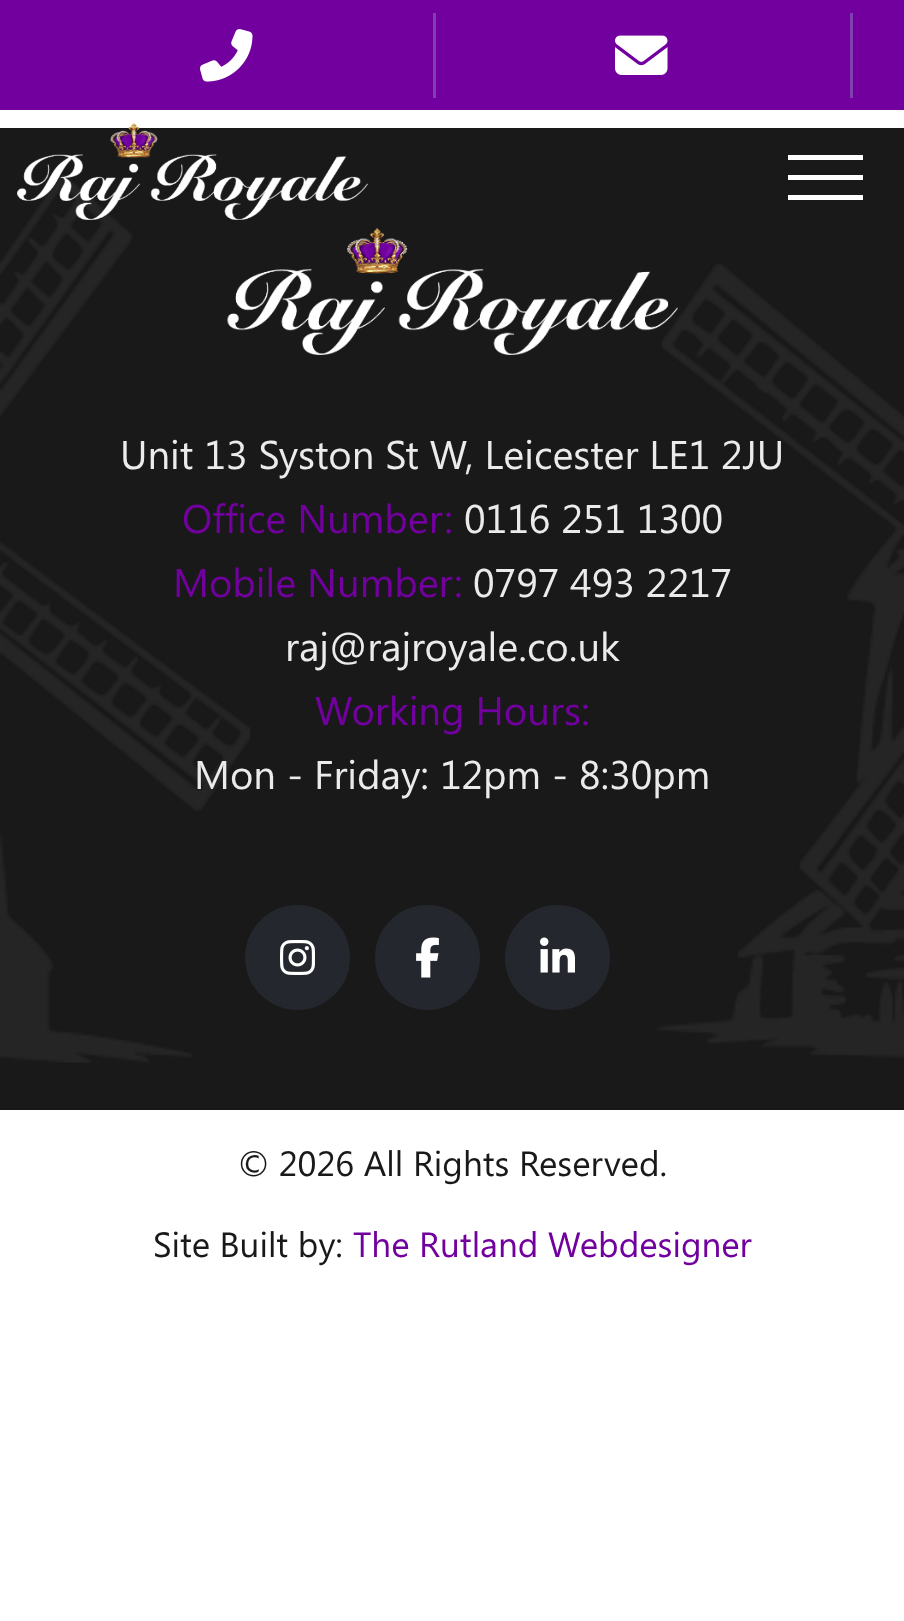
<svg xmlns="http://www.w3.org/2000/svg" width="904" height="1621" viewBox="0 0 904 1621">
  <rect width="100%" height="100%" fill="#ffffff"/>
  <rect x="0" y="0" width="904" height="110" fill="#71009f"/>
  <rect x="433" y="13" width="3" height="85" fill="#8140af"/>
  <image x="200" y="29" width="53" height="53" href="img1.png"/>
  <rect x="850" y="13" width="3" height="85" fill="#8140af"/>
  <image x="615" y="35" width="53" height="40" href="img2.png"/>
  <rect x="0" y="128" width="904" height="982" fill="#191919"/>
  <image x="0" y="175" width="250" height="888" href="img4.png"/>
  <image x="17" y="122" width="351" height="98" href="img3.png"/>
  <rect x="788" y="155" width="75" height="5" fill="#ffffff"/>
  <rect x="788" y="175" width="75" height="5" fill="#ffffff"/>
  <rect x="788" y="195" width="75" height="5" fill="#ffffff"/>
  <image x="657" y="263" width="247" height="795" href="img5.png"/>
  <image x="227" y="227" width="451" height="128" href="img6.png"/>
  <text x="120" y="469" font-family="Segoe UI" font-size="40" fill="#ebebeb">Unit 13 Syston St W, Leicester LE1 2JU</text>
  <text x="182" y="533" font-family="Segoe UI" font-size="40" fill="#71009f">Office Number:</text>
  <text x="464" y="533" font-family="Segoe UI" font-size="40" fill="#ebebeb">0116 251 1300</text>
  <text x="173" y="597" font-family="Segoe UI" font-size="40" fill="#71009f">Mobile Number:</text>
  <text x="473" y="597" font-family="Segoe UI" font-size="40" fill="#ebebeb">0797 493 2217</text>
  <text x="285" y="661" font-family="Segoe UI" font-size="40" fill="#ebebeb">raj@rajroyale.co.uk</text>
  <text x="315" y="725" font-family="Segoe UI" font-size="40" fill="#71009f">Working Hours:</text>
  <text x="194" y="789" font-family="Segoe UI" font-size="40" fill="#ebebeb">Mon - Friday: 12pm - 8:30pm</text>
  <circle cx="297.5" cy="957.5" r="51" fill="#24272d" stroke="#24272d" stroke-width="3"/>
  <image x="280" y="940" width="35" height="35" href="img7.png"/>
  <circle cx="427.5" cy="957.5" r="51" fill="#24272d" stroke="#24272d" stroke-width="3"/>
  <image x="416" y="937" width="23" height="41" href="img8.png"/>
  <circle cx="557.5" cy="957.5" r="51" fill="#24272d" stroke="#24272d" stroke-width="3"/>
  <image x="540" y="937" width="35" height="36" href="img9.png"/>
  <text x="238" y="1176" font-family="Segoe UI" font-size="35" fill="#191919">© 2026 All Rights Reserved.</text>
  <text x="153" y="1257" font-family="Segoe UI" font-size="35" fill="#191919">Site Built by:</text>
  <text x="353" y="1257" font-family="Segoe UI" font-size="35" fill="#71009f">The Rutland Webdesigner</text>
</svg>
